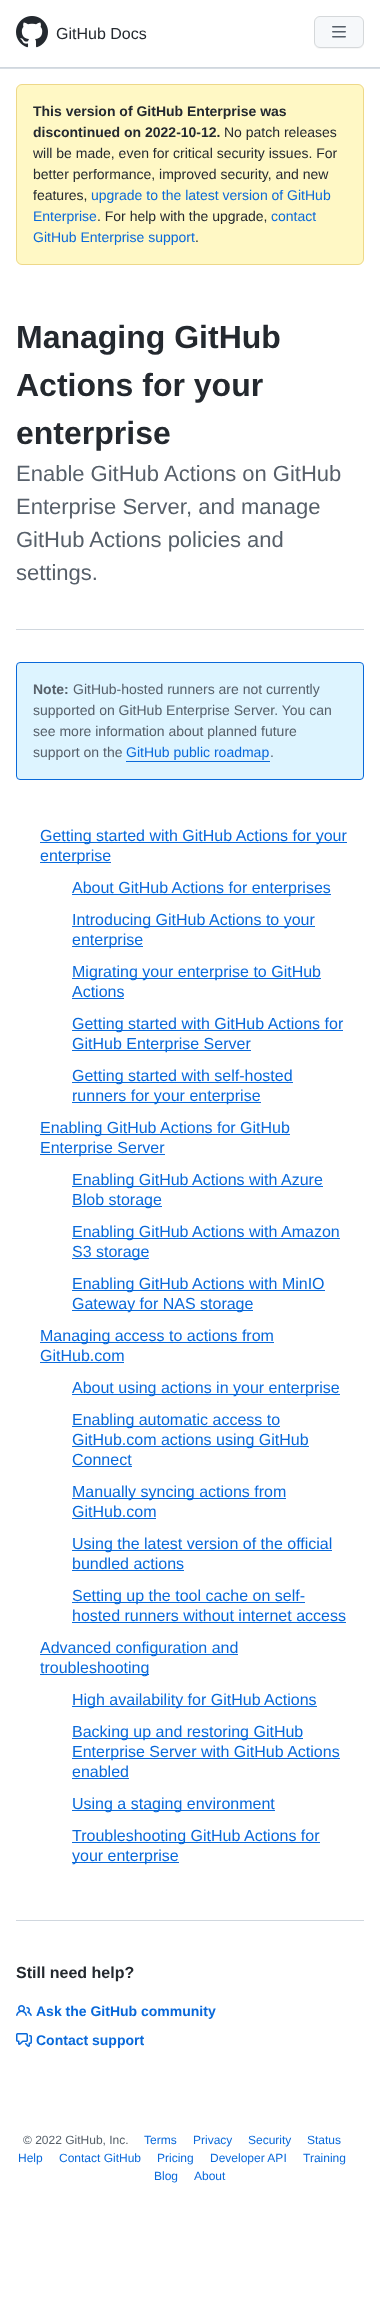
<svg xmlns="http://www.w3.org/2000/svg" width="380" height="2307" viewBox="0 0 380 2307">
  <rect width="100%" height="100%" fill="#ffffff"/>
  <rect x="0" y="68" width="380" height="1" fill="#d8dee4"/>
  <rect x="0" y="67" width="380" height="1" fill="#d0d7de"/>
  <image x="16" y="16" width="32" height="32" href="img1.png"/>
  <text x="56" y="39" font-family="Liberation Sans" font-size="16" fill="#24292f">GitHub Docs</text>
  <path d="M314 42C314 50 320 49 326 49H352C358 49 364 50 364 42C364 45 361 48 358 48H320C317 48 314 45 314 42Z" fill="#f6f6f6"/>
  <rect x="314.5" y="16.5" width="49" height="31" rx="5.5" fill="#f6f8fa" stroke="#d5d8da"/>
  <image x="332" y="26" width="14" height="12" href="img2.png"/>
  <rect x="16" y="84" width="348" height="181" rx="6" fill="#fff8c5"/>
  <rect x="16.5" y="84.5" width="347" height="180" rx="5.5" fill="none" stroke="#d4a72c" stroke-opacity="0.4"/>
  <text x="33" y="116" font-family="Liberation Sans" font-size="14" font-weight="bold" fill="#24292f">This version of GitHub Enterprise was</text>
  <text x="33" y="137" font-family="Liberation Sans" font-size="14" font-weight="bold" fill="#24292f">discontinued on 2022-10-12.</text>
  <text x="224" y="137" font-family="Liberation Sans" font-size="14" fill="#24292f">No patch releases</text>
  <text x="33" y="158" font-family="Liberation Sans" font-size="14" fill="#24292f">will be made, even for critical security issues. For</text>
  <text x="33" y="179" font-family="Liberation Sans" font-size="14" fill="#24292f">better performance, improved security, and new</text>
  <text x="33" y="200" font-family="Liberation Sans" font-size="14" fill="#24292f">features,</text>
  <text x="91" y="200" font-family="Liberation Sans" font-size="14" fill="#0969da">upgrade to the latest version of GitHub</text>
  <text x="33" y="221" font-family="Liberation Sans" font-size="14" fill="#0969da">Enterprise</text>
  <text x="97" y="221" font-family="Liberation Sans" font-size="14" fill="#24292f">. For help with the upgrade,</text>
  <text x="271" y="221" font-family="Liberation Sans" font-size="14" fill="#0969da">contact</text>
  <text x="33" y="242" font-family="Liberation Sans" font-size="14" fill="#0969da">GitHub Enterprise support</text>
  <text x="195" y="242" font-family="Liberation Sans" font-size="14" fill="#24292f">.</text>
  <text x="16" y="348" font-family="Liberation Sans" font-size="32" font-weight="bold" fill="#24292f">Managing GitHub</text>
  <text x="16" y="396" font-family="Liberation Sans" font-size="32" font-weight="bold" fill="#24292f">Actions for your</text>
  <text x="16" y="444" font-family="Liberation Sans" font-size="32" font-weight="bold" fill="#24292f">enterprise</text>
  <text x="16" y="481" font-family="Liberation Sans" font-size="22" fill="#57606a">Enable GitHub Actions on GitHub</text>
  <text x="16" y="514" font-family="Liberation Sans" font-size="22" fill="#57606a">Enterprise Server, and manage</text>
  <text x="16" y="547" font-family="Liberation Sans" font-size="22" fill="#57606a">GitHub Actions policies and</text>
  <text x="16" y="580" font-family="Liberation Sans" font-size="22" fill="#57606a">settings.</text>
  <rect x="16" y="629" width="348" height="1" fill="#d0d7de"/>
  <rect x="16.5" y="662.5" width="347" height="117" rx="3.5" fill="#ddf4ff" stroke="#0969da"/>
  <text x="33" y="694" font-family="Liberation Sans" font-size="14" font-weight="bold" fill="#57606a">Note:</text>
  <text x="73" y="694" font-family="Liberation Sans" font-size="14" fill="#57606a">GitHub-hosted runners are not currently</text>
  <text x="33" y="715" font-family="Liberation Sans" font-size="14" fill="#57606a">supported on GitHub Enterprise Server. You can</text>
  <text x="33" y="736" font-family="Liberation Sans" font-size="14" fill="#57606a">see more information about planned future</text>
  <text x="33" y="757" font-family="Liberation Sans" font-size="14" fill="#57606a">support on the</text>
  <text x="126" y="757" font-family="Liberation Sans" font-size="14" fill="#0969da">GitHub public roadmap</text>
  <rect x="126" y="761" width="144" height="1" fill="#0969da"/>
  <text x="270" y="757" font-family="Liberation Sans" font-size="14" fill="#57606a">.</text>
  <rect x="40" y="842" width="307" height="1" fill="#0969da"/>
  <text x="40" y="841" font-family="Liberation Sans" font-size="16" fill="#0969da">Getting started with GitHub Actions for your</text>
  <rect x="40" y="862" width="71" height="1" fill="#0969da"/>
  <text x="40" y="861" font-family="Liberation Sans" font-size="16" fill="#0969da">enterprise</text>
  <rect x="72" y="894" width="259" height="1" fill="#0969da"/>
  <text x="72" y="893" font-family="Liberation Sans" font-size="16" fill="#0969da">About GitHub Actions for enterprises</text>
  <rect x="72" y="926" width="243" height="1" fill="#0969da"/>
  <text x="72" y="925" font-family="Liberation Sans" font-size="16" fill="#0969da">Introducing GitHub Actions to your</text>
  <rect x="72" y="946" width="71" height="1" fill="#0969da"/>
  <text x="72" y="945" font-family="Liberation Sans" font-size="16" fill="#0969da">enterprise</text>
  <rect x="72" y="978" width="249" height="1" fill="#0969da"/>
  <text x="72" y="977" font-family="Liberation Sans" font-size="16" fill="#0969da">Migrating your enterprise to GitHub</text>
  <text x="72" y="997" font-family="Liberation Sans" font-size="16" fill="#0969da">Actions</text>
  <rect x="72" y="998" width="52" height="1" fill="#0969da"/>
  <rect x="72" y="1030" width="271" height="1" fill="#0969da"/>
  <text x="72" y="1029" font-family="Liberation Sans" font-size="16" fill="#0969da">Getting started with GitHub Actions for</text>
  <rect x="72" y="1050" width="179" height="1" fill="#0969da"/>
  <text x="72" y="1049" font-family="Liberation Sans" font-size="16" fill="#0969da">GitHub Enterprise Server</text>
  <rect x="72" y="1082" width="221" height="1" fill="#0969da"/>
  <text x="72" y="1081" font-family="Liberation Sans" font-size="16" fill="#0969da">Getting started with self-hosted</text>
  <rect x="72" y="1102" width="189" height="1" fill="#0969da"/>
  <text x="72" y="1101" font-family="Liberation Sans" font-size="16" fill="#0969da">runners for your enterprise</text>
  <rect x="40" y="1134" width="250" height="1" fill="#0969da"/>
  <text x="40" y="1133" font-family="Liberation Sans" font-size="16" fill="#0969da">Enabling GitHub Actions for GitHub</text>
  <rect x="40" y="1154" width="125" height="1" fill="#0969da"/>
  <text x="40" y="1153" font-family="Liberation Sans" font-size="16" fill="#0969da">Enterprise Server</text>
  <rect x="72" y="1186" width="251" height="1" fill="#0969da"/>
  <text x="72" y="1185" font-family="Liberation Sans" font-size="16" fill="#0969da">Enabling GitHub Actions with Azure</text>
  <rect x="72" y="1206" width="90" height="1" fill="#0969da"/>
  <text x="72" y="1205" font-family="Liberation Sans" font-size="16" fill="#0969da">Blob storage</text>
  <rect x="72" y="1238" width="268" height="1" fill="#0969da"/>
  <text x="72" y="1237" font-family="Liberation Sans" font-size="16" fill="#0969da">Enabling GitHub Actions with Amazon</text>
  <rect x="72" y="1258" width="77" height="1" fill="#0969da"/>
  <text x="72" y="1257" font-family="Liberation Sans" font-size="16" fill="#0969da">S3 storage</text>
  <rect x="72" y="1290" width="253" height="1" fill="#0969da"/>
  <text x="72" y="1289" font-family="Liberation Sans" font-size="16" fill="#0969da">Enabling GitHub Actions with MinIO</text>
  <rect x="72" y="1310" width="181" height="1" fill="#0969da"/>
  <text x="72" y="1309" font-family="Liberation Sans" font-size="16" fill="#0969da">Gateway for NAS storage</text>
  <rect x="40" y="1342" width="234" height="1" fill="#0969da"/>
  <text x="40" y="1341" font-family="Liberation Sans" font-size="16" fill="#0969da">Managing access to actions from</text>
  <text x="40" y="1361" font-family="Liberation Sans" font-size="16" fill="#0969da">GitHub.com</text>
  <rect x="40" y="1362" width="84" height="1" fill="#0969da"/>
  <rect x="72" y="1394" width="268" height="1" fill="#0969da"/>
  <text x="72" y="1393" font-family="Liberation Sans" font-size="16" fill="#0969da">About using actions in your enterprise</text>
  <rect x="72" y="1426" width="208" height="1" fill="#0969da"/>
  <text x="72" y="1425" font-family="Liberation Sans" font-size="16" fill="#0969da">Enabling automatic access to</text>
  <rect x="72" y="1446" width="237" height="1" fill="#0969da"/>
  <text x="72" y="1445" font-family="Liberation Sans" font-size="16" fill="#0969da">GitHub.com actions using GitHub</text>
  <text x="72" y="1465" font-family="Liberation Sans" font-size="16" fill="#0969da">Connect</text>
  <rect x="72" y="1466" width="60" height="1" fill="#0969da"/>
  <rect x="72" y="1498" width="214" height="1" fill="#0969da"/>
  <text x="72" y="1497" font-family="Liberation Sans" font-size="16" fill="#0969da">Manually syncing actions from</text>
  <text x="72" y="1517" font-family="Liberation Sans" font-size="16" fill="#0969da">GitHub.com</text>
  <rect x="72" y="1518" width="84" height="1" fill="#0969da"/>
  <rect x="72" y="1550" width="260" height="1" fill="#0969da"/>
  <text x="72" y="1549" font-family="Liberation Sans" font-size="16" fill="#0969da">Using the latest version of the official</text>
  <text x="72" y="1569" font-family="Liberation Sans" font-size="16" fill="#0969da">bundled actions</text>
  <rect x="72" y="1570" width="112" height="1" fill="#0969da"/>
  <rect x="72" y="1602" width="233" height="1" fill="#0969da"/>
  <text x="72" y="1601" font-family="Liberation Sans" font-size="16" fill="#0969da">Setting up the tool cache on self-</text>
  <text x="72" y="1621" font-family="Liberation Sans" font-size="16" fill="#0969da">hosted runners without internet access</text>
  <rect x="72" y="1622" width="274" height="1" fill="#0969da"/>
  <rect x="40" y="1654" width="198" height="1" fill="#0969da"/>
  <text x="40" y="1653" font-family="Liberation Sans" font-size="16" fill="#0969da">Advanced configuration and</text>
  <rect x="40" y="1674" width="109" height="1" fill="#0969da"/>
  <text x="40" y="1673" font-family="Liberation Sans" font-size="16" fill="#0969da">troubleshooting</text>
  <rect x="72" y="1706" width="245" height="1" fill="#0969da"/>
  <text x="72" y="1705" font-family="Liberation Sans" font-size="16" fill="#0969da">High availability for GitHub Actions</text>
  <rect x="72" y="1738" width="231" height="1" fill="#0969da"/>
  <text x="72" y="1737" font-family="Liberation Sans" font-size="16" fill="#0969da">Backing up and restoring GitHub</text>
  <rect x="72" y="1758" width="268" height="1" fill="#0969da"/>
  <text x="72" y="1757" font-family="Liberation Sans" font-size="16" fill="#0969da">Enterprise Server with GitHub Actions</text>
  <text x="72" y="1777" font-family="Liberation Sans" font-size="16" fill="#0969da">enabled</text>
  <rect x="72" y="1778" width="57" height="1" fill="#0969da"/>
  <rect x="72" y="1810" width="203" height="1" fill="#0969da"/>
  <text x="72" y="1809" font-family="Liberation Sans" font-size="16" fill="#0969da">Using a staging environment</text>
  <rect x="72" y="1842" width="248" height="1" fill="#0969da"/>
  <text x="72" y="1841" font-family="Liberation Sans" font-size="16" fill="#0969da">Troubleshooting GitHub Actions for</text>
  <rect x="72" y="1862" width="107" height="1" fill="#0969da"/>
  <text x="72" y="1861" font-family="Liberation Sans" font-size="16" fill="#0969da">your enterprise</text>
  <rect x="16" y="1920" width="348" height="1" fill="#d0d7de"/>
  <text x="16" y="1978" font-family="Liberation Sans" font-size="16" font-weight="bold" fill="#24292f">Still need help?</text>
  <image x="16" y="2005" width="16" height="11" href="img3.png"/>
  <text x="36" y="2016" font-family="Liberation Sans" font-size="14" font-weight="bold" fill="#0969da">Ask the GitHub community</text>
  <image x="16" y="2033" width="16" height="14" href="img4.png"/>
  <text x="36" y="2045" font-family="Liberation Sans" font-size="14" font-weight="bold" fill="#0969da">Contact support</text>
  <text x="23" y="2144" font-family="Liberation Sans" font-size="12" fill="#57606a">© 2022 GitHub, Inc.</text>
  <text x="144" y="2144" font-family="Liberation Sans" font-size="12" fill="#0969da">Terms</text>
  <text x="193" y="2144" font-family="Liberation Sans" font-size="12" fill="#0969da">Privacy</text>
  <text x="248" y="2144" font-family="Liberation Sans" font-size="12" fill="#0969da">Security</text>
  <text x="307" y="2144" font-family="Liberation Sans" font-size="12" fill="#0969da">Status</text>
  <text x="18" y="2162" font-family="Liberation Sans" font-size="12" fill="#0969da">Help</text>
  <text x="59" y="2162" font-family="Liberation Sans" font-size="12" fill="#0969da">Contact GitHub</text>
  <text x="157" y="2162" font-family="Liberation Sans" font-size="12" fill="#0969da">Pricing</text>
  <text x="210" y="2162" font-family="Liberation Sans" font-size="12" fill="#0969da">Developer API</text>
  <text x="303" y="2162" font-family="Liberation Sans" font-size="12" fill="#0969da">Training</text>
  <text x="154" y="2180" font-family="Liberation Sans" font-size="12" fill="#0969da">Blog</text>
  <text x="194" y="2180" font-family="Liberation Sans" font-size="12" fill="#0969da">About</text>
</svg>
